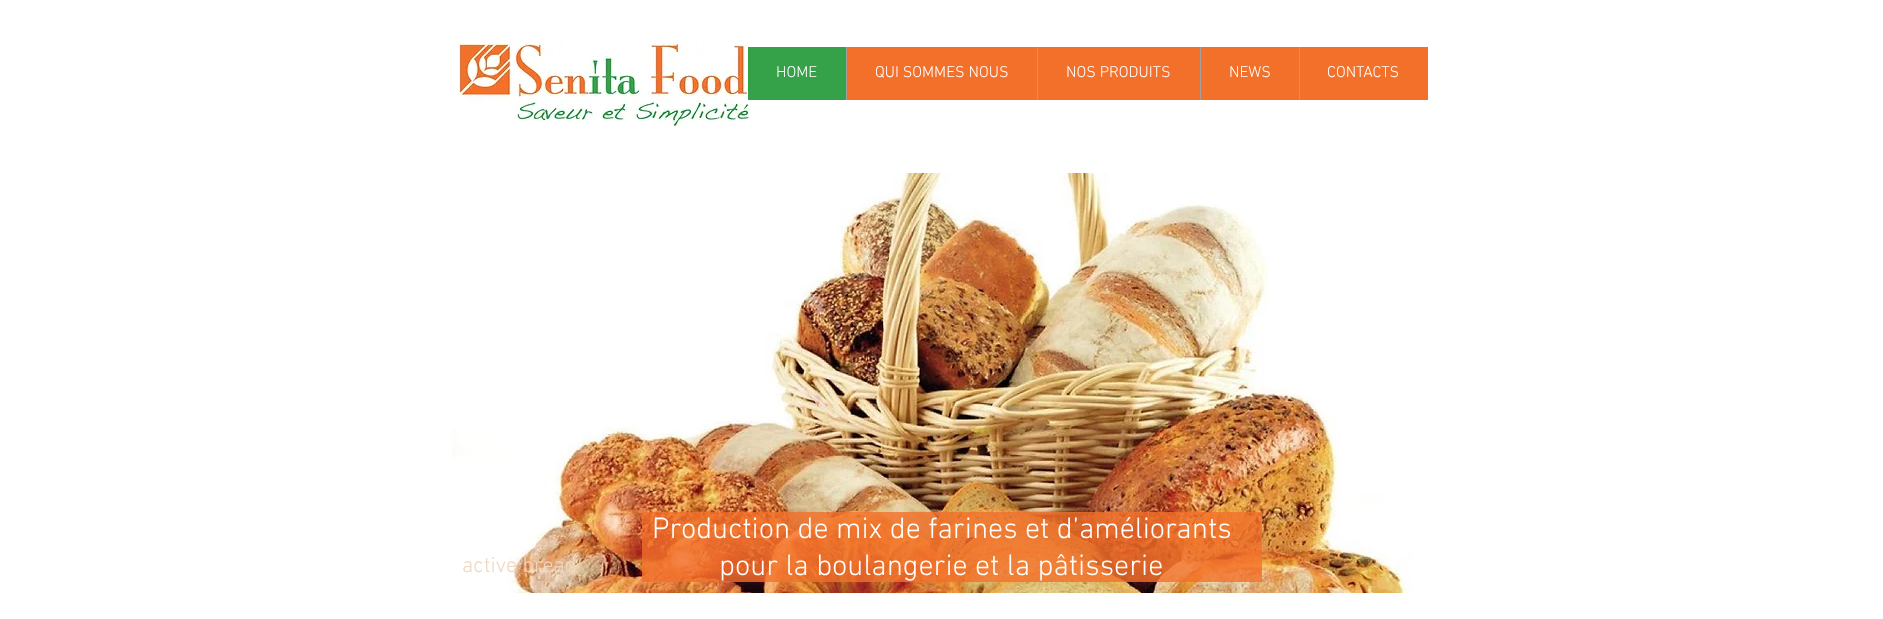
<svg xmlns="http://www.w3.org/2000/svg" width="1883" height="619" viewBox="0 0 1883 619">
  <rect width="100%" height="100%" fill="#ffffff"/>
  <image x="459" y="40" width="293" height="88" href="img1.png"/>
  <rect x="847" y="47" width="581" height="53" fill="#f3702a"/>
  <rect x="748" y="47" width="98" height="53" fill="#35a249"/>
  <text x="776" y="77" font-family="'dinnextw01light'" font-size="16" font-weight="300" fill="#ffffff">HOME</text>
  <rect x="846" y="47" width="1" height="53" fill="#a0a09f"/>
  <text x="875" y="77" font-family="'dinnextw01light'" font-size="16" font-weight="300" fill="#ffffff">QUI SOMMES NOUS</text>
  <rect x="1037" y="47" width="1" height="53" fill="#a0a09f"/>
  <text x="1066" y="77" font-family="'dinnextw01light'" font-size="16" font-weight="300" fill="#ffffff">NOS PRODUITS</text>
  <rect x="1200" y="47" width="1" height="53" fill="#a0a09f"/>
  <text x="1229" y="77" font-family="'dinnextw01light'" font-size="16" font-weight="300" fill="#ffffff">NEWS</text>
  <rect x="1299" y="47" width="1" height="53" fill="#a0a09f"/>
  <text x="1327" y="77" font-family="'dinnextw01light'" font-size="16" font-weight="300" fill="#ffffff">CONTACTS</text>
  <image x="452" y="173" width="980" height="420" href="img2.png"/>
  <rect x="642" y="512" width="620" height="70" fill="#f3702a" fill-opacity="0.8"/>
  <text x="462" y="572" font-family="'dinnextw01light'" font-size="22" font-weight="300" fill="#efd7c1">active bread</text>
  <text x="652" y="538" font-family="'dinnextw01light'" font-size="30" font-weight="300" fill="#ffffff">Production de mix de farines et d’améliorants</text>
  <text x="719" y="575" font-family="'dinnextw01light'" font-size="30" font-weight="300" fill="#ffffff">pour la boulangerie et la pâtisserie</text>
</svg>
